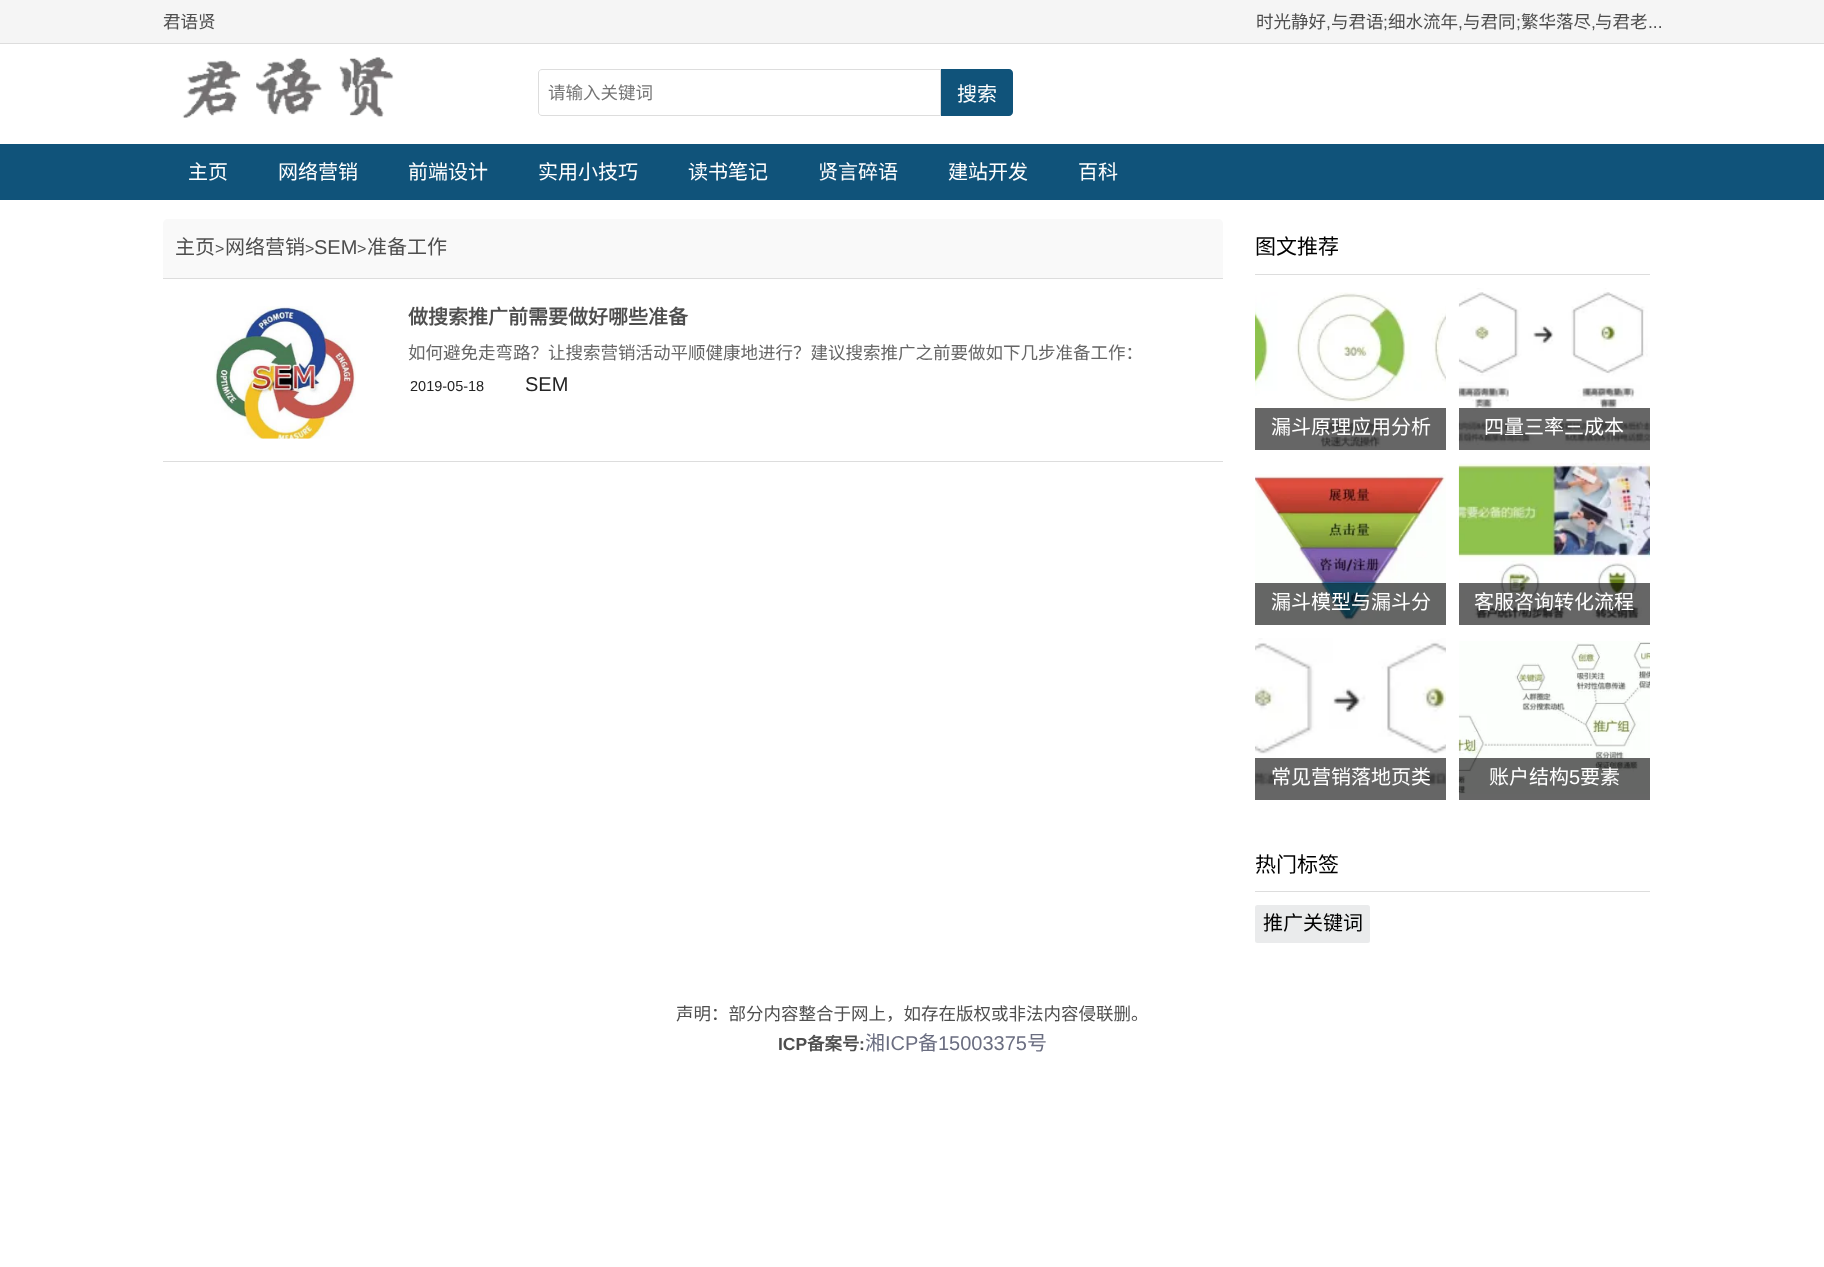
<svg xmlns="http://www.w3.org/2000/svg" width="1824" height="1267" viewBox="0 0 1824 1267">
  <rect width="100%" height="100%" fill="#ffffff"/>
  <rect x="0" y="0" width="1824" height="43" fill="#f5f5f5"/>
  <rect x="0" y="43" width="1824" height="1" fill="#dddddd"/>
  <text x="163" y="28" font-family="Noto Sans CJK SC" font-size="17.5" fill="#4e4e4e">君语贤</text>
  <text x="1256" y="28" font-family="Noto Sans CJK SC" font-size="17.5" fill="#4e4e4e">时光静好</text>
  <text x="1326" y="28" font-family="Liberation Sans" font-size="17.5" fill="#4e4e4e">,</text>
  <text x="1331" y="28" font-family="Noto Sans CJK SC" font-size="17.5" fill="#4e4e4e">与君语</text>
  <text x="1383" y="28" font-family="Liberation Sans" font-size="17.5" fill="#4e4e4e">;</text>
  <text x="1388" y="28" font-family="Noto Sans CJK SC" font-size="17.5" fill="#4e4e4e">细水流年</text>
  <text x="1458" y="28" font-family="Liberation Sans" font-size="17.5" fill="#4e4e4e">,</text>
  <text x="1463" y="28" font-family="Noto Sans CJK SC" font-size="17.5" fill="#4e4e4e">与君同</text>
  <text x="1516" y="28" font-family="Liberation Sans" font-size="17.5" fill="#4e4e4e">;</text>
  <text x="1521" y="28" font-family="Noto Sans CJK SC" font-size="17.5" fill="#4e4e4e">繁华落尽</text>
  <text x="1591" y="28" font-family="Liberation Sans" font-size="17.5" fill="#4e4e4e">,</text>
  <text x="1595" y="28" font-family="Noto Sans CJK SC" font-size="17.5" fill="#4e4e4e">与君老</text>
  <text x="1648" y="28" font-family="Liberation Sans" font-size="17.5" fill="#4e4e4e">...</text>
  <image x="182" y="57" width="212" height="61" href="img1.png"/>
  <path d="M542 69.5H940.5V115.5H542C540 115.5 538.5 114 538.5 112V73C538.5 71 540 69.5 542 69.5Z" fill="none" stroke="#dddddd"/>
  <text x="548" y="99" font-family="Noto Sans CJK SC" font-size="17.5" fill="#757575">请输入关键词</text>
  <path d="M941 69H1009C1011 69 1013 71 1013 73V112C1013 114 1011 116 1009 116H941Z" fill="#10537a"/>
  <text x="957" y="101" font-family="Noto Sans CJK SC" font-size="20" fill="#ffffff">搜索</text>
  <rect x="0" y="144" width="1824" height="56" fill="#10537a"/>
  <text x="188" y="179" font-family="Noto Sans CJK SC" font-size="20" fill="#ffffff">主页</text>
  <text x="278" y="179" font-family="Noto Sans CJK SC" font-size="20" fill="#ffffff">网络营销</text>
  <text x="408" y="179" font-family="Noto Sans CJK SC" font-size="20" fill="#ffffff">前端设计</text>
  <text x="538" y="179" font-family="Noto Sans CJK SC" font-size="20" fill="#ffffff">实用小技巧</text>
  <text x="688" y="179" font-family="Noto Sans CJK SC" font-size="20" fill="#ffffff">读书笔记</text>
  <text x="818" y="179" font-family="Noto Sans CJK SC" font-size="20" fill="#ffffff">贤言碎语</text>
  <text x="948" y="179" font-family="Noto Sans CJK SC" font-size="20" fill="#ffffff">建站开发</text>
  <text x="1078" y="179" font-family="Noto Sans CJK SC" font-size="20" fill="#ffffff">百科</text>
  <path d="M168 219H1218C1221 219 1223 221 1223 224V279H163V224C163 221 165 219 168 219Z" fill="#f9f9f9"/>
  <rect x="163" y="278" width="1060" height="1" fill="#dddddd"/>
  <text x="175" y="254" font-family="Noto Sans CJK SC" font-size="20" fill="#4e4e4e">主页</text>
  <text x="215" y="254" font-family="Liberation Sans" font-size="16" fill="#4e4e4e">&gt;</text>
  <text x="225" y="254" font-family="Noto Sans CJK SC" font-size="20" fill="#4e4e4e">网络营销</text>
  <text x="305" y="254" font-family="Liberation Sans" font-size="16" fill="#4e4e4e">&gt;</text>
  <text x="314" y="254" font-family="Liberation Sans" font-size="20" fill="#4e4e4e">SEM</text>
  <text x="357" y="254" font-family="Liberation Sans" font-size="16" fill="#4e4e4e">&gt;</text>
  <text x="367" y="254" font-family="Noto Sans CJK SC" font-size="20" fill="#4e4e4e">准备工作</text>
  <rect x="163" y="461" width="1060" height="1" fill="#dddddd"/>
  <image x="214" y="306" width="142" height="133" href="img2.png"/>
  <text x="408" y="324" font-family="Noto Sans CJK SC" font-size="20" font-weight="bold" fill="#4e4e4e">做搜索推广前需要做好哪些准备</text>
  <text x="408" y="359" font-family="Noto Sans CJK SC" font-size="17.5" fill="#666666">如何避免走弯路？让搜索营销活动平顺健康地进行？建议搜索推广之前要做如下几步准备工作：</text>
  <text x="410" y="391" font-family="Liberation Sans" font-size="14.5" fill="#242424">2019-05-18</text>
  <text x="525" y="391" font-family="Liberation Sans" font-size="20" fill="#242424">SEM</text>
  <rect x="1255" y="274" width="395" height="1" fill="#dddddd"/>
  <text x="1255" y="254" font-family="Noto Sans CJK SC" font-size="21" fill="#000000">图文推荐</text>
  <image x="1255" y="292" width="191" height="156" href="img3.png"/>
  <rect x="1255" y="408" width="191" height="42" fill="#000000" fill-opacity="0.6"/>
  <text x="1271" y="434" font-family="Noto Sans CJK SC" font-size="20" fill="#ffffff">漏斗原理应用分析</text>
  <image x="1458" y="288" width="192" height="157" href="img4.png"/>
  <rect x="1459" y="408" width="191" height="42" fill="#000000" fill-opacity="0.6"/>
  <text x="1484" y="434" font-family="Noto Sans CJK SC" font-size="20" fill="#ffffff">四量三率三成本</text>
  <image x="1255" y="474" width="191" height="151" href="img5.png"/>
  <rect x="1255" y="583" width="191" height="42" fill="#000000" fill-opacity="0.6"/>
  <text x="1271" y="609" font-family="Noto Sans CJK SC" font-size="20" fill="#ffffff">漏斗模型与漏斗分</text>
  <image x="1458" y="462" width="192" height="158" href="img6.png"/>
  <rect x="1459" y="583" width="191" height="42" fill="#000000" fill-opacity="0.6"/>
  <text x="1474" y="609" font-family="Noto Sans CJK SC" font-size="20" fill="#ffffff">客服咨询转化流程</text>
  <image x="1255" y="638" width="191" height="148" href="img7.png"/>
  <rect x="1255" y="758" width="191" height="42" fill="#000000" fill-opacity="0.6"/>
  <text x="1271" y="784" font-family="Noto Sans CJK SC" font-size="20" fill="#ffffff">常见营销落地页类</text>
  <image x="1458" y="641" width="192" height="153" href="img8.png"/>
  <rect x="1459" y="758" width="191" height="42" fill="#000000" fill-opacity="0.6"/>
  <text x="1489" y="784" font-family="Noto Sans CJK SC" font-size="20" fill="#ffffff">账户结构</text>
  <text x="1569" y="784" font-family="Liberation Sans" font-size="20" fill="#ffffff">5</text>
  <text x="1580" y="784" font-family="Noto Sans CJK SC" font-size="20" fill="#ffffff">要素</text>
  <rect x="1255" y="891" width="395" height="1" fill="#dddddd"/>
  <text x="1255" y="872" font-family="Noto Sans CJK SC" font-size="21" fill="#000000">热门标签</text>
  <rect x="1255" y="905" width="115" height="38" rx="2.5" fill="#eaebec"/>
  <text x="1263" y="930" font-family="Noto Sans CJK SC" font-size="20" fill="#000000">推广关键词</text>
  <text x="676" y="1020" font-family="Noto Sans CJK SC" font-size="17.5" fill="#4e4e4e">声明：部分内容整合于网上，如存在版权或非法内容侵联删。</text>
  <text x="778" y="1050" font-family="Liberation Sans" font-size="17.5" font-weight="bold" fill="#4e4e4e">ICP</text>
  <text x="807" y="1050" font-family="Noto Sans CJK SC" font-size="17.5" font-weight="bold" fill="#4e4e4e">备案号</text>
  <text x="859" y="1050" font-family="Liberation Sans" font-size="17.5" font-weight="bold" fill="#4e4e4e">:</text>
  <text x="865" y="1050" font-family="Noto Sans CJK SC" font-size="20" fill="#6b6e81">湘</text>
  <text x="885" y="1050" font-family="Liberation Sans" font-size="20" fill="#6b6e81">ICP</text>
  <text x="918" y="1050" font-family="Noto Sans CJK SC" font-size="20" fill="#6b6e81">备</text>
  <text x="938" y="1050" font-family="Liberation Sans" font-size="20" fill="#6b6e81">15003375</text>
  <text x="1027" y="1050" font-family="Noto Sans CJK SC" font-size="20" fill="#6b6e81">号</text>
</svg>
